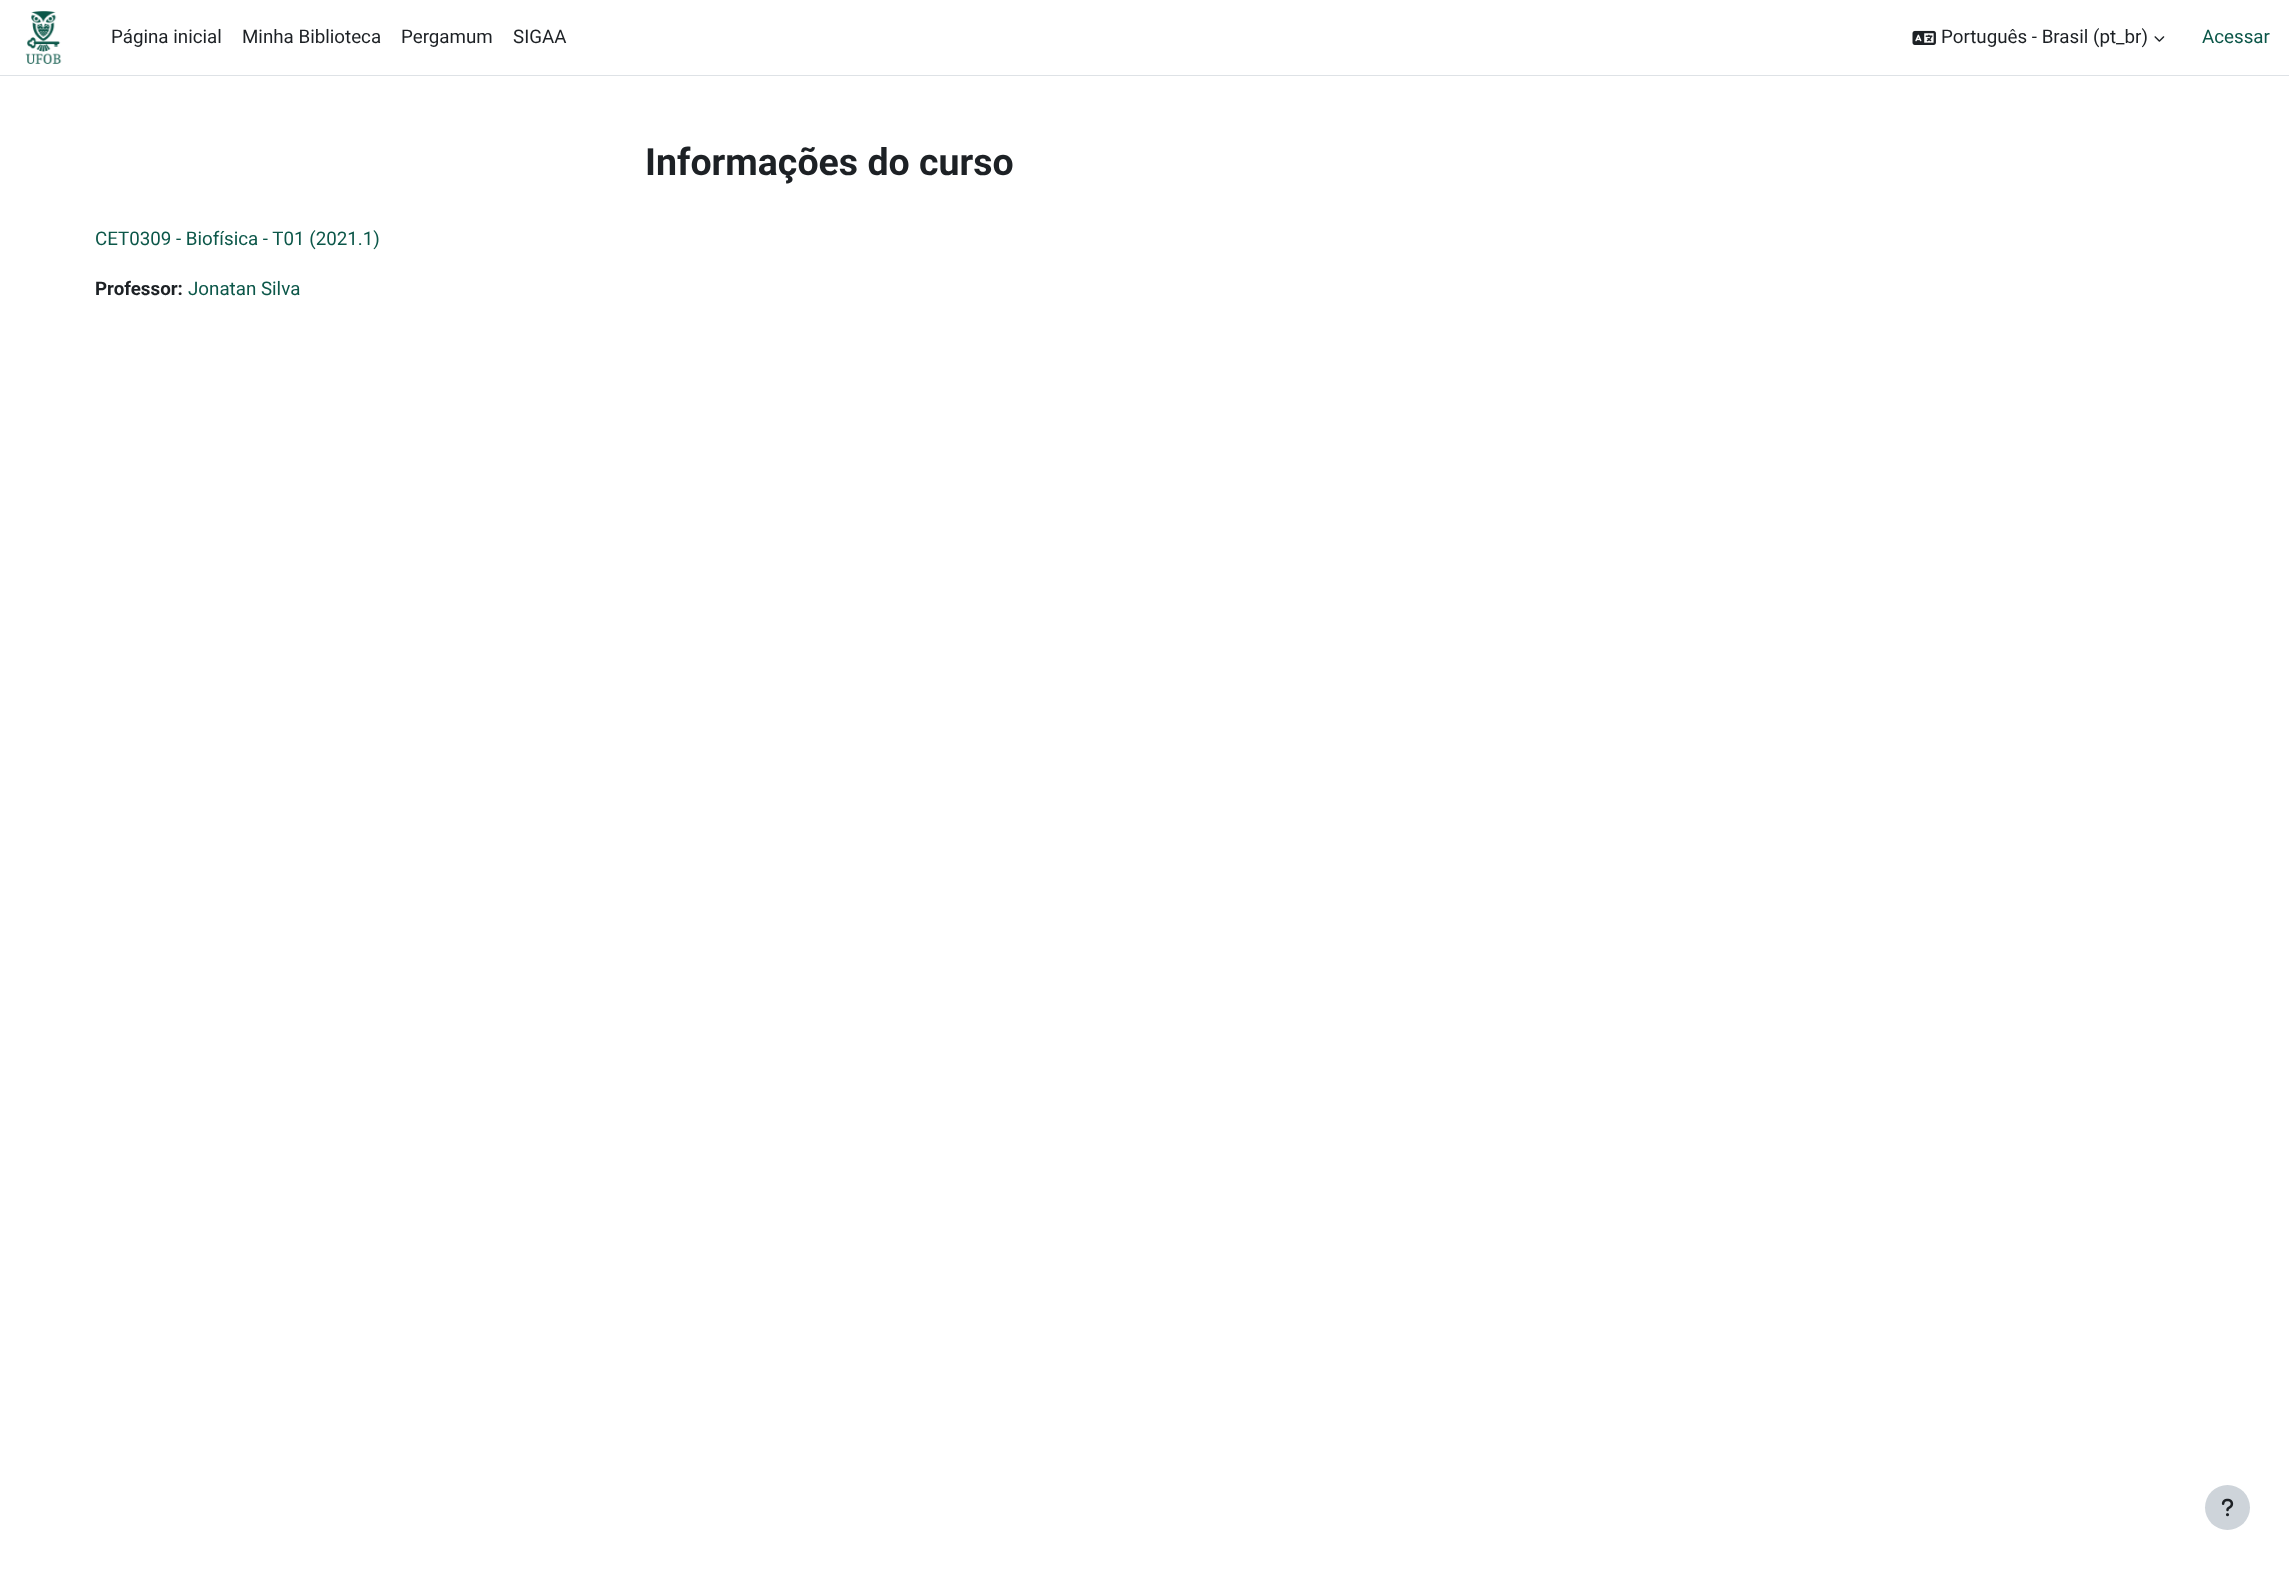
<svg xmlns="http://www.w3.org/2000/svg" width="2289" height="1570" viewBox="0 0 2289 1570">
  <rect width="100%" height="100%" fill="#ffffff"/>
  <rect x="0" y="75" width="2289" height="1" fill="#dee2e6"/>
  <image x="25" y="11" width="37" height="53" href="img1.png"/>
  <text x="111" y="43" font-family="Roboto" font-size="18.75" fill="#1d2125">Página inicial</text>
  <text x="242" y="43" font-family="Roboto" font-size="18.75" fill="#1d2125">Minha Biblioteca</text>
  <text x="401" y="43" font-family="Roboto" font-size="18.75" fill="#1d2125">Pergamum</text>
  <text x="513" y="43" font-family="Roboto" font-size="18.75" fill="#1d2125">SIGAA</text>
  <image x="1912" y="30" width="24" height="15" href="img2.png"/>
  <text x="1941" y="43" font-family="Roboto" font-size="18.75" fill="#1d2125">Português - Brasil (pt_br)</text>
  <image x="2154" y="36" width="11" height="6" href="img3.png"/>
  <text x="2202" y="43" font-family="Roboto" font-size="18.75" fill="#0c5749">Acessar</text>
  <text x="645" y="175" font-family="Roboto" font-size="37.5" font-weight="bold" fill="#1d2125">Informações do curso</text>
  <text x="95" y="245" font-family="Roboto" font-size="18.75" fill="#0c5749">CET0309 - Biofísica - T01 (2021.1)</text>
  <text x="95" y="295" font-family="Roboto" font-size="18.75" font-weight="bold" fill="#1d2125">Professor:</text>
  <text x="188" y="295" font-family="Roboto" font-size="18.75" fill="#0c5749">Jonatan Silva</text>
  <circle cx="2227.5" cy="1507.5" r="22.5" fill="#ced4da"/>
  <image x="2221" y="1498" width="13" height="19" href="img4.png"/>
</svg>
